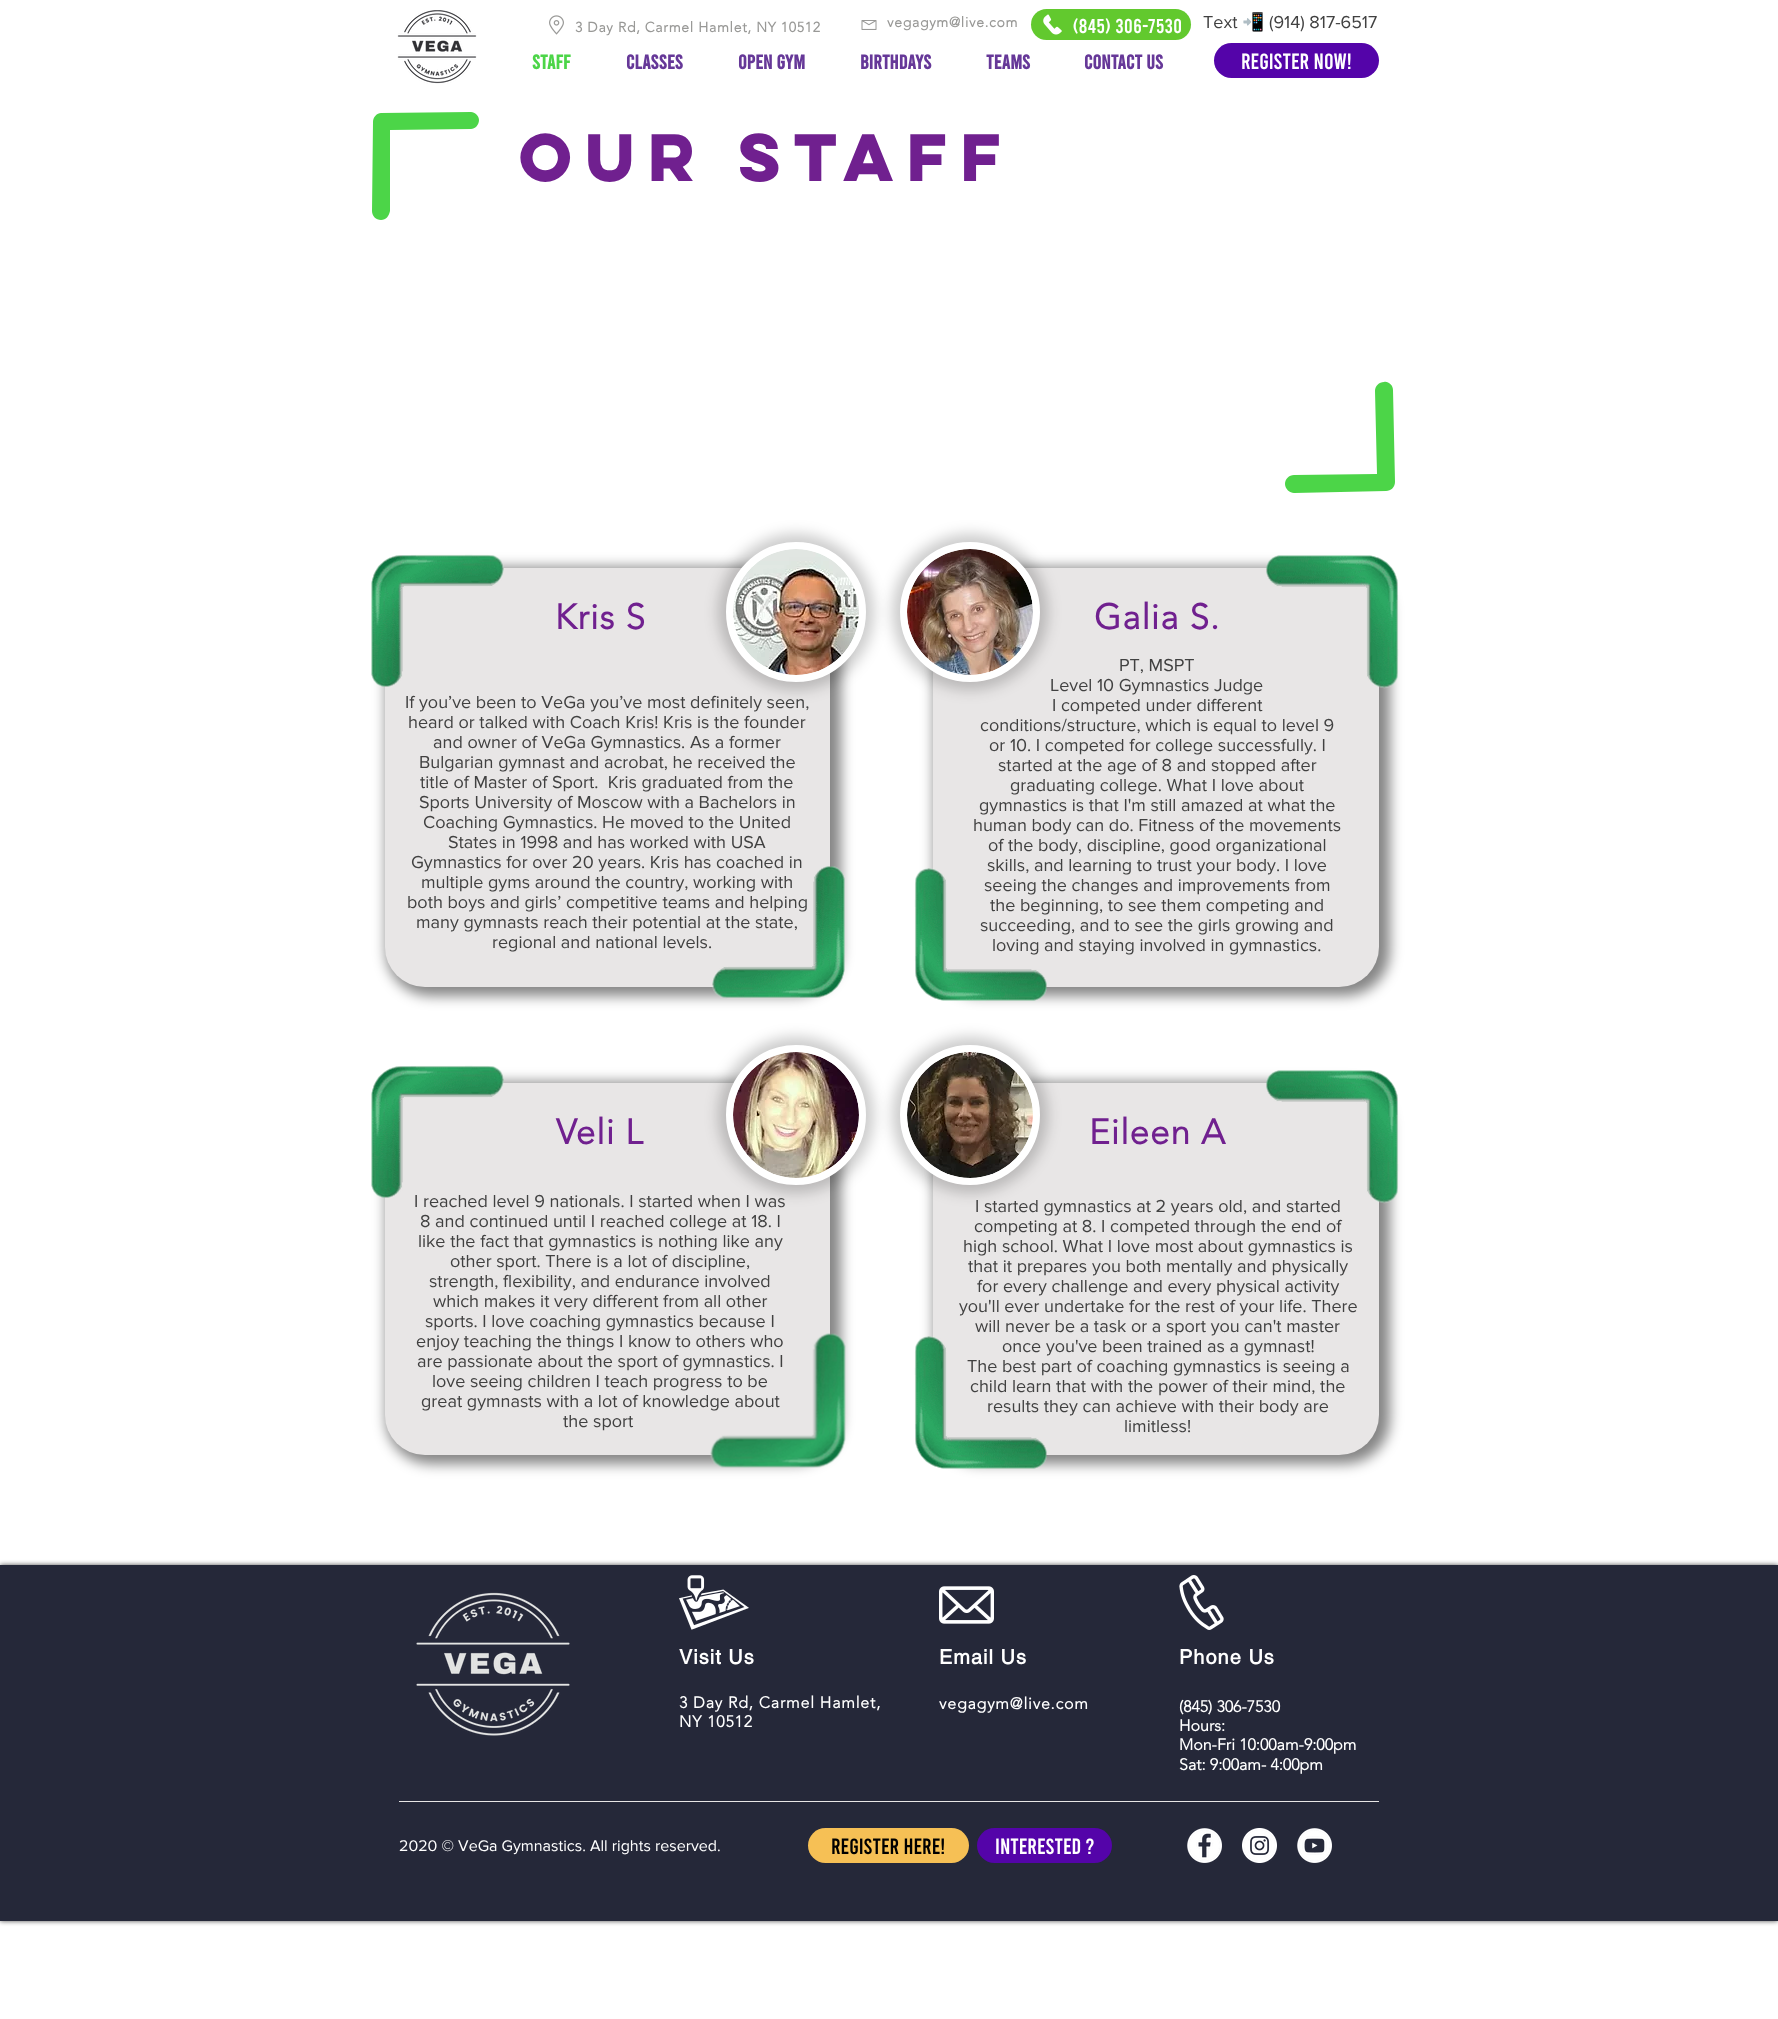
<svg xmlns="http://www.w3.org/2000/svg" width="1778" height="2019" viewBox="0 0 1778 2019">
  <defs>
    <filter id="blur1" x="-50%" y="-200%" width="200%" height="500%"><feGaussianBlur stdDeviation="6.5"/></filter>
    <filter id="blur2" x="-50%" y="-200%" width="200%" height="500%"><feGaussianBlur stdDeviation="7"/></filter>
    <filter id="blur3" x="-50%" y="-200%" width="200%" height="500%"><feGaussianBlur stdDeviation="2.5"/></filter>
  </defs>
  <rect width="100%" height="100%" fill="#ffffff"/>
  <image x="397" y="10" width="80" height="74" href="img1.png"/>
  <image x="549" y="15" width="15" height="20" href="img2.png"/>
  <text x="575" y="32" font-family="'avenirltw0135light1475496'" font-size="14" font-weight="bold" letter-spacing="0.7" fill="#999997">3 Day Rd, Carmel Hamlet, NY 10512</text>
  <image x="861" y="20" width="16" height="10" href="img3.png"/>
  <text x="887" y="27" font-family="'avenirltw0135light1475496'" font-size="14" font-weight="bold" letter-spacing="0.7" fill="#999997">vegagym@live.com</text>
  <rect x="1031" y="9" width="160" height="31" rx="15.5" fill="#62c92e"/>
  <image x="1043" y="14" width="19" height="21" href="img4.png"/>
  <text x="1073" y="33" font-family="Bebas" font-size="20" letter-spacing="0.5" fill="#ffffff">(845) 306-7530</text>
  <text x="1203" y="28" font-family="'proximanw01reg'" font-size="18" fill="#414141">Text</text>
  <text x="1242" y="28" font-family="Noto Color Emoji" font-size="18" fill="#414141">📲</text>
  <text x="1269" y="28" font-family="'proximanw01reg'" font-size="18" fill="#414141">(914) 817-6517</text>
  <text x="532" y="69" font-family="Bebas" font-size="20" font-weight="bold" fill="#4cd548">Staff</text>
  <text x="626" y="69" font-family="Bebas" font-size="20" font-weight="bold" fill="#663898">Classes</text>
  <text x="738" y="69" font-family="Bebas" font-size="20" font-weight="bold" fill="#663898">Open Gym</text>
  <text x="860" y="69" font-family="Bebas" font-size="20" font-weight="bold" fill="#663898">Birthdays</text>
  <text x="986" y="69" font-family="Bebas" font-size="20" font-weight="bold" fill="#663898">Teams</text>
  <text x="1084" y="69" font-family="Bebas" font-size="20" font-weight="bold" fill="#663898">Contact Us</text>
  <rect x="1214" y="43" width="165" height="35" rx="17.5" fill="#5404a9"/>
  <text x="1241" y="69" font-family="Bebas" font-size="22" fill="#ffffff">Register Now!</text>
  <path d="M390 211V130L471 129C475 129 479 125 479 120C479 116 475 112 471 112L381 113C377 113 373 117 373 122L372 211C372 216 376 220 381 220C386 220 389 216 390 211Z" fill="#4cd548"/>
  <text x="519" y="181" font-family="'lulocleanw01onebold'" font-size="60" font-weight="bold" fill="#70208f">our Staff</text>
  <path d="M1375 391L1377 474L1294 475C1289 475 1285 479 1285 484C1285 489 1290 493 1294 493L1386 491C1391 491 1395 487 1395 482L1393 390C1393 385 1388 381 1384 382C1379 382 1375 386 1375 391Z" fill="#4cd548"/>
  <rect x="386" y="567" width="455" height="429" rx="45" fill="#000000" fill-opacity="0.48" filter="url(#blur1)"/>
  <rect x="385" y="568" width="445" height="419" rx="40" fill="#e8e6e6"/>
  <image x="371" y="554" width="133" height="133" href="img5.png"/>
  <rect x="718" y="534" width="156" height="156" rx="78" fill="#000000" fill-opacity="0.2" filter="url(#blur2)"/>
  <circle cx="796" cy="612" r="66.5" fill="#ffffff" stroke="#ffffff" stroke-width="7"/>
  <image x="733" y="549" width="126" height="126" href="img6.png"/>
  <text x="555" y="629" font-family="'avenirltw0135light1475496'" font-size="35" font-weight="bold" letter-spacing="1" fill="#70208f">Kris S</text>
  <text x="405" y="708" font-family="'proximanw01reg'" font-size="18" fill="#414141">If you’ve been to VeGa you’ve most definitely seen,</text>
  <text x="408" y="728" font-family="'proximanw01reg'" font-size="18" fill="#414141">heard or talked with Coach Kris! Kris is the founder</text>
  <text x="433" y="748" font-family="'proximanw01reg'" font-size="18" fill="#414141">and owner of VeGa Gymnastics. As a former</text>
  <text x="419" y="768" font-family="'proximanw01reg'" font-size="18" fill="#414141">Bulgarian gymnast and acrobat, he received the</text>
  <text x="420" y="788" font-family="'proximanw01reg'" font-size="18" fill="#414141" xml:space="preserve">title of Master of Sport.  Kris graduated from the</text>
  <text x="419" y="808" font-family="'proximanw01reg'" font-size="18" fill="#414141">Sports University of Moscow with a Bachelors in</text>
  <text x="423" y="828" font-family="'proximanw01reg'" font-size="18" fill="#414141">Coaching Gymnastics. He moved to the United</text>
  <text x="448" y="848" font-family="'proximanw01reg'" font-size="18" fill="#414141">States in 1998 and has worked with USA</text>
  <text x="411" y="868" font-family="'proximanw01reg'" font-size="18" fill="#414141">Gymnastics for over 20 years. Kris has coached in</text>
  <text x="421" y="888" font-family="'proximanw01reg'" font-size="18" fill="#414141">multiple gyms around the country, working with</text>
  <text x="407" y="908" font-family="'proximanw01reg'" font-size="18" fill="#414141">both boys and girls’ competitive teams and helping</text>
  <text x="416" y="928" font-family="'proximanw01reg'" font-size="18" fill="#414141">many gymnasts reach their potential at the state,</text>
  <text x="492" y="948" font-family="'proximanw01reg'" font-size="18" fill="#414141">regional and national levels.</text>
  <image x="712" y="866" width="133" height="133" href="img7.png"/>
  <rect x="934" y="567" width="456" height="429" rx="45" fill="#000000" fill-opacity="0.48" filter="url(#blur1)"/>
  <rect x="933" y="568" width="446" height="419" rx="40" fill="#e8e6e6"/>
  <rect x="892" y="534" width="156" height="156" rx="78" fill="#000000" fill-opacity="0.2" filter="url(#blur2)"/>
  <circle cx="970" cy="612" r="66.5" fill="#ffffff" stroke="#ffffff" stroke-width="7"/>
  <image x="907" y="549" width="126" height="126" href="img8.png"/>
  <image x="1266" y="555" width="133" height="134" href="img9.png"/>
  <text x="1094" y="629" font-family="'avenirltw0135light1475496'" font-size="35" font-weight="bold" letter-spacing="1" fill="#70208f">Galia S.</text>
  <text x="1119" y="671" font-family="'proximanw01reg'" font-size="18" fill="#414141">PT, MSPT</text>
  <text x="1050" y="691" font-family="'proximanw01reg'" font-size="18" fill="#414141">Level 10 Gymnastics Judge</text>
  <text x="1052" y="711" font-family="'proximanw01reg'" font-size="18" fill="#414141">I competed under different</text>
  <text x="980" y="731" font-family="'proximanw01reg'" font-size="18" fill="#414141">conditions/structure, which is equal to level 9</text>
  <text x="989" y="751" font-family="'proximanw01reg'" font-size="18" fill="#414141">or 10. I competed for college successfully. I</text>
  <text x="998" y="771" font-family="'proximanw01reg'" font-size="18" fill="#414141">started at the age of 8 and stopped after</text>
  <text x="1010" y="791" font-family="'proximanw01reg'" font-size="18" fill="#414141">graduating college. What I love about</text>
  <text x="979" y="811" font-family="'proximanw01reg'" font-size="18" fill="#414141">gymnastics is that I'm still amazed at what the</text>
  <text x="973" y="831" font-family="'proximanw01reg'" font-size="18" fill="#414141">human body can do. Fitness of the movements</text>
  <text x="988" y="851" font-family="'proximanw01reg'" font-size="18" fill="#414141">of the body, discipline, good organizational</text>
  <text x="987" y="871" font-family="'proximanw01reg'" font-size="18" fill="#414141">skills, and learning to trust your body. I love</text>
  <text x="984" y="891" font-family="'proximanw01reg'" font-size="18" fill="#414141">seeing the changes and improvements from</text>
  <text x="990" y="911" font-family="'proximanw01reg'" font-size="18" fill="#414141">the beginning, to see them competing and</text>
  <text x="980" y="931" font-family="'proximanw01reg'" font-size="18" fill="#414141">succeeding, and to see the girls growing and</text>
  <text x="992" y="951" font-family="'proximanw01reg'" font-size="18" fill="#414141">loving and staying involved in gymnastics.</text>
  <image x="914" y="868" width="133" height="133" href="img10.png"/>
  <rect x="386" y="1082" width="455" height="382" rx="45" fill="#000000" fill-opacity="0.48" filter="url(#blur1)"/>
  <rect x="385" y="1083" width="445" height="372" rx="40" fill="#e8e6e6"/>
  <text x="414" y="1207" font-family="'proximanw01reg'" font-size="18" fill="#414141">I reached level 9 nationals. I started when I was</text>
  <image x="371" y="1065" width="133" height="133" href="img11.png"/>
  <rect x="718" y="1037" width="156" height="156" rx="78" fill="#000000" fill-opacity="0.2" filter="url(#blur2)"/>
  <circle cx="796" cy="1115" r="66.5" fill="#ffffff" stroke="#ffffff" stroke-width="7"/>
  <image x="733" y="1052" width="126" height="126" href="img12.png"/>
  <text x="556" y="1144" font-family="'avenirltw0135light1475496'" font-size="35" font-weight="bold" letter-spacing="1" fill="#70208f">Veli L</text>
  <text x="420" y="1227" font-family="'proximanw01reg'" font-size="18" fill="#414141">8 and continued until I reached college at 18. I</text>
  <text x="418" y="1247" font-family="'proximanw01reg'" font-size="18" fill="#414141">like the fact that gymnastics is nothing like any</text>
  <text x="450" y="1267" font-family="'proximanw01reg'" font-size="18" fill="#414141">other sport. There is a lot of discipline,</text>
  <text x="429" y="1287" font-family="'proximanw01reg'" font-size="18" fill="#414141">strength, flexibility, and endurance involved</text>
  <text x="433" y="1307" font-family="'proximanw01reg'" font-size="18" fill="#414141">which makes it very different from all other</text>
  <text x="425" y="1327" font-family="'proximanw01reg'" font-size="18" fill="#414141">sports. I love coaching gymnastics because I</text>
  <text x="416" y="1347" font-family="'proximanw01reg'" font-size="18" fill="#414141">enjoy teaching the things I know to others who</text>
  <text x="417" y="1367" font-family="'proximanw01reg'" font-size="18" fill="#414141">are passionate about the sport of gymnastics. I</text>
  <text x="432" y="1387" font-family="'proximanw01reg'" font-size="18" fill="#414141">love seeing children I teach progress to be</text>
  <text x="421" y="1407" font-family="'proximanw01reg'" font-size="18" fill="#414141">great gymnasts with a lot of knowledge about</text>
  <text x="563" y="1427" font-family="'proximanw01reg'" font-size="18" fill="#414141">the sport</text>
  <image x="710" y="1333" width="136" height="135" href="img13.png"/>
  <rect x="934" y="1082" width="456" height="382" rx="45" fill="#000000" fill-opacity="0.48" filter="url(#blur1)"/>
  <rect x="933" y="1083" width="446" height="372" rx="40" fill="#e8e6e6"/>
  <rect x="892" y="1037" width="156" height="156" rx="78" fill="#000000" fill-opacity="0.2" filter="url(#blur2)"/>
  <circle cx="970" cy="1115" r="66.5" fill="#ffffff" stroke="#ffffff" stroke-width="7"/>
  <image x="907" y="1052" width="126" height="126" href="img14.png"/>
  <text x="975" y="1212" font-family="'proximanw01reg'" font-size="18" fill="#414141">I started gymnastics at 2 years old, and started</text>
  <image x="1266" y="1070" width="133" height="134" href="img15.png"/>
  <text x="1089" y="1144" font-family="'avenirltw0135light1475496'" font-size="35" font-weight="bold" letter-spacing="1" fill="#70208f">Eileen A</text>
  <text x="974" y="1232" font-family="'proximanw01reg'" font-size="18" fill="#414141">competing at 8. I competed through the end of</text>
  <text x="963" y="1252" font-family="'proximanw01reg'" font-size="18" fill="#414141">high school. What I love most about gymnastics is</text>
  <text x="968" y="1272" font-family="'proximanw01reg'" font-size="18" fill="#414141">that it prepares you both mentally and physically</text>
  <text x="977" y="1292" font-family="'proximanw01reg'" font-size="18" fill="#414141">for every challenge and every physical activity</text>
  <text x="959" y="1312" font-family="'proximanw01reg'" font-size="18" fill="#414141">you'll ever undertake for the rest of your life. There</text>
  <text x="975" y="1332" font-family="'proximanw01reg'" font-size="18" fill="#414141">will never be a task or a sport you can't master</text>
  <text x="1002" y="1352" font-family="'proximanw01reg'" font-size="18" fill="#414141">once you've been trained as a gymnast!</text>
  <text x="967" y="1372" font-family="'proximanw01reg'" font-size="18" fill="#414141">The best part of coaching gymnastics is seeing a</text>
  <text x="970" y="1392" font-family="'proximanw01reg'" font-size="18" fill="#414141">child learn that with the power of their mind, the</text>
  <text x="987" y="1412" font-family="'proximanw01reg'" font-size="18" fill="#414141">results they can achieve with their body are</text>
  <text x="1124" y="1432" font-family="'proximanw01reg'" font-size="18" fill="#414141">limitless!</text>
  <image x="914" y="1336" width="133" height="133" href="img16.png"/>
  <rect x="0" y="1565" width="1778" height="356" fill="#000000" fill-opacity="0.7" filter="url(#blur3)"/>
  <rect x="0" y="1565" width="1778" height="356" fill="#252839"/>
  <image x="416" y="1592" width="154" height="144" href="img17.png"/>
  <image x="679" y="1575" width="70" height="55" href="img18.png"/>
  <image x="939" y="1586" width="55" height="38" href="img19.png"/>
  <image x="1179" y="1575" width="45" height="55" href="img20.png"/>
  <text x="679" y="1664" font-family="helvetica" font-size="20" font-weight="bold" letter-spacing="1" fill="#ffffff">Visit Us</text>
  <text x="939" y="1664" font-family="helvetica" font-size="20" font-weight="bold" letter-spacing="1" fill="#ffffff">Email Us</text>
  <text x="1179" y="1664" font-family="helvetica" font-size="20" font-weight="bold" letter-spacing="1" fill="#ffffff">Phone Us</text>
  <text x="679" y="1708" font-family="'avenirltw0135light1475496'" font-size="16" font-weight="bold" letter-spacing="0.8" fill="#ffffff">3 Day Rd, Carmel Hamlet,</text>
  <text x="679" y="1727" font-family="'avenirltw0135light1475496'" font-size="16" font-weight="bold" letter-spacing="0.8" fill="#ffffff">NY 10512</text>
  <text x="939" y="1709" font-family="'avenirltw0135light1475496'" font-size="16" font-weight="bold" letter-spacing="0.8" fill="#ffffff">vegagym@live.com</text>
  <text x="1179" y="1712" font-family="'avenirltw0135light1475496'" font-size="16" font-weight="bold" fill="#ffffff">(845) 306-7530</text>
  <text x="1179" y="1731" font-family="'avenirltw0135light1475496'" font-size="16" font-weight="bold" fill="#ffffff">Hours:</text>
  <text x="1179" y="1750" font-family="'avenirltw0135light1475496'" font-size="16" font-weight="bold" fill="#ffffff">Mon-Fri 10:00am-9:00pm</text>
  <text x="1179" y="1770" font-family="'avenirltw0135light1475496'" font-size="16" font-weight="bold" fill="#ffffff">Sat: 9:00am- 4:00pm</text>
  <rect x="399" y="1801" width="980" height="1" fill="#e8e6e6"/>
  <text x="399" y="1851" font-family="'proximanw01reg'" font-size="16" fill="#ffffff">2020 © VeGa Gymnastics. All rights reserved.</text>
  <rect x="808" y="1828" width="161" height="35" rx="17.5" fill="#f6c055"/>
  <text x="831" y="1854" font-family="Bebas" font-size="22" fill="#000000">Register Here!</text>
  <rect x="977" y="1828" width="135" height="35" rx="17.5" fill="#5404a9"/>
  <text x="995" y="1854" font-family="Bebas" font-size="22" fill="#ffffff">Interested ?</text>
  <image x="1187" y="1828" width="35" height="35" href="img21.png"/>
  <image x="1242" y="1828" width="35" height="35" href="img22.png"/>
  <image x="1297" y="1828" width="35" height="35" href="img23.png"/>
</svg>
